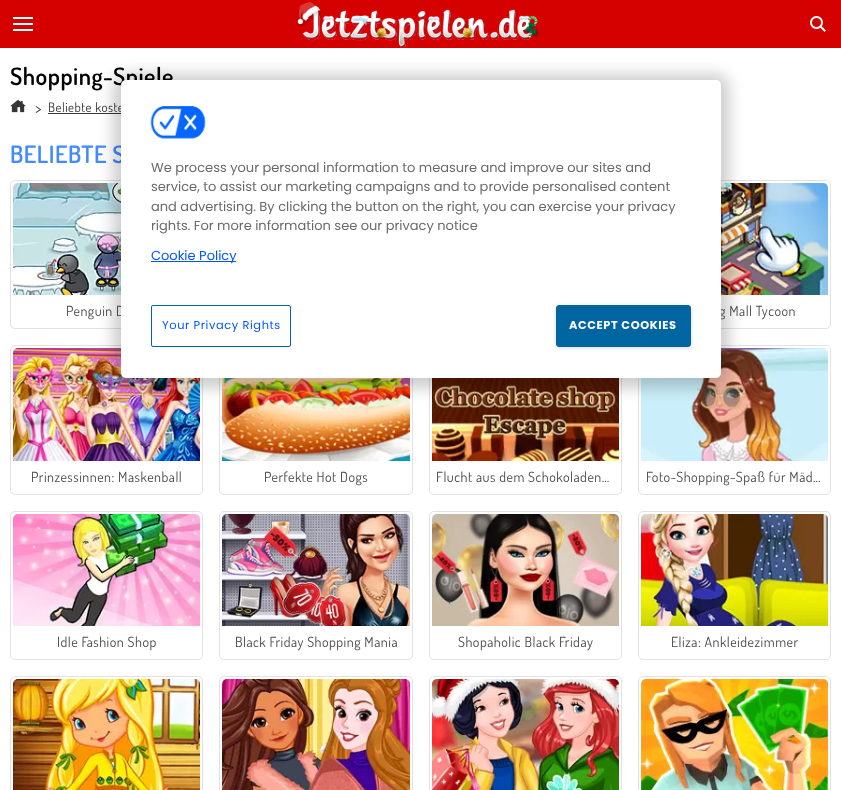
<svg xmlns="http://www.w3.org/2000/svg" width="841" height="790" viewBox="0 0 841 790">
  <defs>
    <filter id="blur1" x="-50%" y="-200%" width="200%" height="500%"><feGaussianBlur stdDeviation="7.5"/></filter>
    <filter id="blur2" x="-50%" y="-200%" width="200%" height="500%"><feGaussianBlur stdDeviation="2"/></filter>
  </defs>
  <rect width="100%" height="100%" fill="#d50000"/>
  <rect x="13" y="17" width="20" height="2" fill="#ffffff"/>
  <rect x="13" y="23" width="20" height="2" fill="#ffffff"/>
  <rect x="13" y="29" width="20" height="2" fill="#ffffff"/>
  <image x="297" y="2" width="243" height="46" href="img1.png"/>
  <image x="810" y="16" width="16" height="16" href="img2.png"/>
  <rect x="0" y="48" width="841" height="742" fill="#ffffff"/>
  <text x="10" y="85" font-family="Dosis" font-size="24" font-weight="600" letter-spacing="0.5" fill="#000000">Shopping-Spiele</text>
  <image x="10" y="99" width="16" height="14" href="img3.png"/>
  <text x="35" y="114" font-family="Dosis" font-size="16" letter-spacing="0.5" fill="#363636">&gt;</text>
  <text x="48" y="112" font-family="Dosis" font-size="13" letter-spacing="0.5" fill="#363636">Beliebte koste</text>
  <rect x="48" y="113" width="73" height="1" fill="#363636"/>
  <text x="10" y="163" font-family="Dosis" font-size="24" font-weight="600" letter-spacing="0.5" fill="#438afe">BELIEBTE S</text>
  <rect x="10.5" y="180.5" width="192" height="148" rx="4.5" fill="none" stroke="#e2e2e2"/>
  <image x="13" y="183" width="108" height="112" href="img4.png"/>
  <text x="66" y="316" font-family="Dosis" font-size="14" letter-spacing="0.5" fill="#4a4a4a">Penguin D</text>
  <rect x="638.5" y="180.5" width="192" height="148" rx="4.5" fill="none" stroke="#e2e2e2"/>
  <image x="721" y="183" width="107" height="112" href="img5.png"/>
  <text x="719" y="316" font-family="Dosis" font-size="14" letter-spacing="0.5" fill="#4a4a4a">g Mall Tycoon</text>
  <rect x="10.5" y="345.5" width="192" height="149" rx="4.5" fill="none" stroke="#e2e2e2"/>
  <image x="13" y="348" width="187" height="113" href="img6.png"/>
  <text x="31" y="482" font-family="Dosis" font-size="14" letter-spacing="0.5" fill="#4a4a4a">Prinzessinnen: Maskenball</text>
  <rect x="219.5" y="345.5" width="193" height="149" rx="4.5" fill="none" stroke="#e2e2e2"/>
  <image x="222" y="378" width="188" height="83" href="img7.png"/>
  <text x="264" y="482" font-family="Dosis" font-size="14" letter-spacing="0.5" fill="#4a4a4a">Perfekte Hot Dogs</text>
  <rect x="429.5" y="345.5" width="192" height="149" rx="4.5" fill="none" stroke="#e2e2e2"/>
  <image x="432" y="378" width="187" height="83" href="img8.png"/>
  <text x="436" y="482" font-family="Dosis" font-size="14" letter-spacing="0.5" fill="#4a4a4a">Flucht aus dem Schokoladen…</text>
  <rect x="638.5" y="345.5" width="192" height="149" rx="4.5" fill="none" stroke="#e2e2e2"/>
  <image x="641" y="348" width="187" height="113" href="img9.png"/>
  <text x="646" y="482" font-family="Dosis" font-size="14" letter-spacing="0.5" fill="#4a4a4a">Foto-Shopping-Spaß für Mäd…</text>
  <rect x="10.5" y="511.5" width="192" height="148" rx="4.5" fill="none" stroke="#e2e2e2"/>
  <image x="13" y="514" width="187" height="112" href="img10.png"/>
  <text x="57" y="647" font-family="Dosis" font-size="14" letter-spacing="0.5" fill="#4a4a4a">Idle Fashion Shop</text>
  <rect x="219.5" y="511.5" width="193" height="148" rx="4.5" fill="none" stroke="#e2e2e2"/>
  <image x="222" y="514" width="188" height="112" href="img11.png"/>
  <text x="235" y="647" font-family="Dosis" font-size="14" letter-spacing="0.5" fill="#4a4a4a">Black Friday Shopping Mania</text>
  <rect x="429.5" y="511.5" width="192" height="148" rx="4.5" fill="none" stroke="#e2e2e2"/>
  <image x="432" y="514" width="187" height="112" href="img12.png"/>
  <text x="458" y="647" font-family="Dosis" font-size="14" letter-spacing="0.5" fill="#4a4a4a">Shopaholic Black Friday</text>
  <rect x="638.5" y="511.5" width="192" height="148" rx="4.5" fill="none" stroke="#e2e2e2"/>
  <image x="641" y="514" width="187" height="112" href="img13.png"/>
  <text x="671" y="647" font-family="Dosis" font-size="14" letter-spacing="0.5" fill="#4a4a4a">Eliza: Ankleidezimmer</text>
  <rect x="10.5" y="676.5" width="192" height="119" rx="4.5" fill="none" stroke="#e2e2e2"/>
  <image x="13" y="679" width="187" height="111" href="img14.png"/>
  <rect x="219.5" y="676.5" width="193" height="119" rx="4.5" fill="none" stroke="#e2e2e2"/>
  <image x="222" y="679" width="188" height="111" href="img15.png"/>
  <rect x="429.5" y="676.5" width="192" height="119" rx="4.5" fill="none" stroke="#e2e2e2"/>
  <image x="432" y="679" width="187" height="111" href="img16.png"/>
  <rect x="638.5" y="676.5" width="192" height="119" rx="4.5" fill="none" stroke="#e2e2e2"/>
  <image x="641" y="679" width="187" height="111" href="img17.png"/>
  <rect x="113" y="74" width="616" height="314" rx="13" fill="#000000" fill-opacity="0.2" filter="url(#blur1)"/>
  <rect x="121" y="80" width="600" height="298" rx="5" fill="#ffffff"/>
  <image x="150" y="106" width="56" height="33" href="img18.png"/>
  <text x="151" y="172" font-family="Poppins" font-size="13" fill="#696969">We process your personal information to measure and improve our sites and</text>
  <text x="151" y="191" font-family="Poppins" font-size="13" fill="#696969">service, to assist our marketing campaigns and to provide personalised content</text>
  <text x="151" y="211" font-family="Poppins" font-size="13" fill="#696969">and advertising. By clicking the button on the right, you can exercise your privacy</text>
  <text x="151" y="230" font-family="Poppins" font-size="13" fill="#696969">rights. For more information see our privacy notice</text>
  <rect x="151" y="261" width="85" height="1" fill="#0055ff"/>
  <text x="151" y="260" font-family="Poppins" font-size="13" fill="#0055ff">Cookie Policy</text>
  <rect x="151.5" y="305.5" width="139" height="41" rx="1.5" fill="none" stroke="#0065a0"/>
  <text x="162" y="329" font-family="Poppins" font-size="11.4" letter-spacing="0.6" fill="#0055ff">Your Privacy Rights</text>
  <rect x="556" y="306" width="135" height="42" rx="3" fill="#000000" fill-opacity="0.16" filter="url(#blur2)"/>
  <rect x="556.5" y="305.5" width="134" height="41" rx="2.5" fill="#0065a0" stroke="#0065a0"/>
  <text x="569" y="329" font-family="Poppins" font-size="11.4" font-weight="bold" letter-spacing="0.6" fill="#ffffff">ACCEPT COOKIES</text>
</svg>
